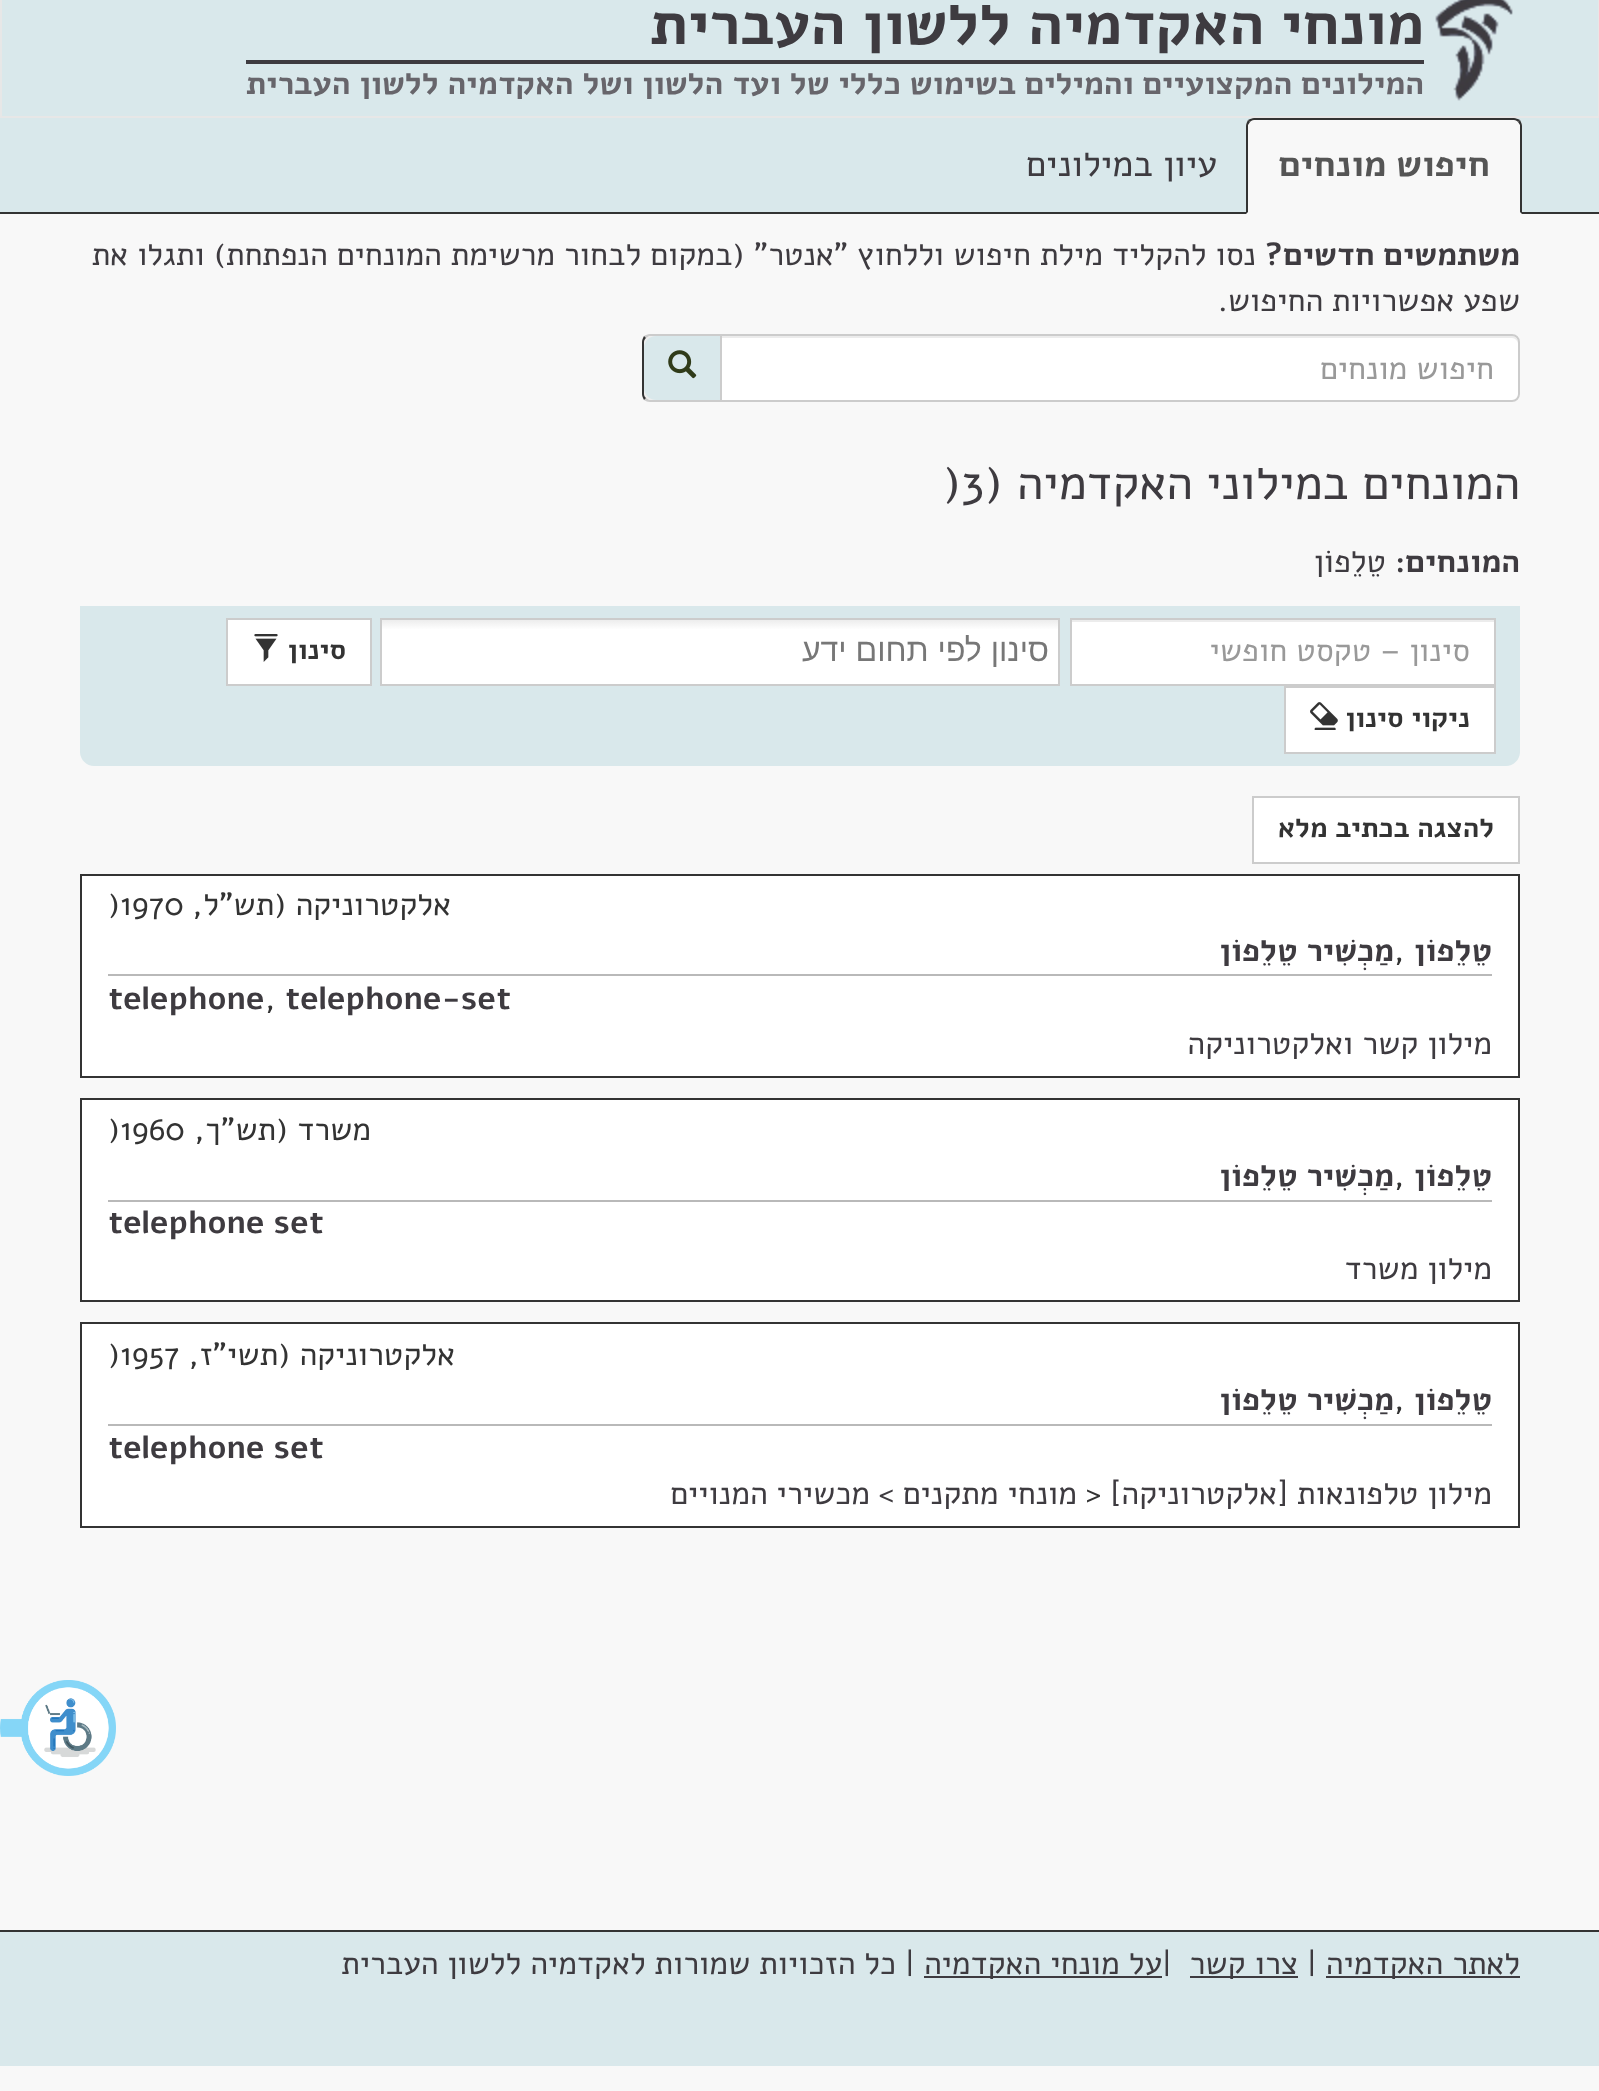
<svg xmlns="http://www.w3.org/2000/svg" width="1599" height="2091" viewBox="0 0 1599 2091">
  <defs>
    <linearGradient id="g1" gradientUnits="userSpaceOnUse" x1="720" y1="620" x2="720" y2="684"><stop offset="0.01" stop-color="#eeeeee"/><stop offset="0.15" stop-color="#ffffff"/></linearGradient>
  </defs>
  <rect width="100%" height="100%" fill="#f8f8f8"/>
  <rect x="1" y="-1" width="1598" height="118" fill="#d9e8eb" stroke="#e7e7e7" stroke-width="2"/>
  <image x="1435" y="0" width="78" height="101" href="img1.png"/>
  <text x="1424" y="44" font-family="Alef" font-size="60" font-weight="bold" direction="rtl" fill="#3e3b40">מונחי האקדמיה</text>
  <text x="1011" y="44" font-family="Alef" font-size="60" font-weight="bold" direction="rtl" fill="#3e3b40">ללשון העברית</text>
  <rect x="246" y="60" width="1178" height="4" fill="#3e3b40"/>
  <text x="1424" y="94" font-family="Alef" font-size="32" font-weight="bold" direction="rtl" fill="#67656b">המילונים המקצועיים והמילים בשימוש כללי של ועד הלשון ושל האקדמיה ללשון העברית</text>
  <rect x="0" y="118" width="1599" height="94" fill="#d9e8eb"/>
  <rect x="0" y="212" width="1599" height="2" fill="#333333"/>
  <path d="M1254 118H1514C1518.5 118 1522 121.5 1522 126V214H1246V126C1246 121.5 1249.5 118 1254 118Z" fill="#f8f8f8"/>
  <path d="M1254 118C1252 118 1250 119 1248 120L1250 122C1251 121 1252 120 1254 120H1514C1516 120 1517 121 1518 122L1520 120C1518 119 1516 118 1514 118Z" fill="#333333"/>
  <path d="M1522 214V126C1522 124 1521 122 1520 120L1518 122L1520 125V212Z" fill="#333333"/>
  <path d="M1246 214L1248 212V125L1250 122L1248 120C1247 122 1246 124 1246 126Z" fill="#333333"/>
  <text x="1490" y="176" font-family="Alef" font-size="36" font-weight="bold" direction="rtl" fill="#555555">חיפוש מונחים</text>
  <text x="1217" y="176" font-family="Alef" font-size="36" direction="rtl" fill="#3e3b40">עיון במילונים</text>
  <text x="1520" y="265" font-family="Alef" font-size="32" font-weight="bold" direction="rtl" fill="#3e3b40">משתמשים חדשים?</text>
  <text x="1256" y="265" font-family="Alef" font-size="32" direction="rtl" fill="#3e3b40">נסו להקליד מילת חיפוש וללחוץ "אנטר" (במקום לבחור מרשימת המונחים הנפתחת) ותגלו את</text>
  <text x="1520" y="311" font-family="Alef" font-size="32" direction="rtl" fill="#3e3b40">שפע אפשרויות החיפוש.</text>
  <path d="M720 334H1512C1516.5 334 1520 337.5 1520 342V394C1520 398.5 1516.5 402 1512 402H720Z" fill="#ffffff"/>
  <path d="M722 338H1512C1515 338 1518 341 1518 344V342C1518 339 1515 336 1512 336H722Z" fill="#ececec"/>
  <path d="M721 335H1512C1516 335 1519 338 1519 342V394C1519 398 1516 401 1512 401H721Z" fill="none" stroke="#cccccc" stroke-width="2"/>
  <text x="1494" y="379" font-family="Alef" font-size="32" direction="rtl" fill="#999999">חיפוש מונחים</text>
  <path d="M650 334H720V402H650C645.5 402 642 398.5 642 394V342C642 337.5 645.5 334 650 334Z" fill="#eeeeee"/>
  <path d="M650 334C648 334 646 335 644 336L646 338L649 336H720V334Z" fill="#cccccc"/>
  <path d="M720 402V400H649L646 398L644 400C646 401 648 402 650 402Z" fill="#cccccc"/>
  <path d="M642 342V394C642 396 643 398 644 400L646 398C645 397 644 396 644 394V342C644 340 645 339 646 338L644 336C643 338 642 340 642 342Z" fill="#333333"/>
  <path d="M656 336H720V400H656C649.5 400 644 394.5 644 388V348C644 341.5 649.5 336 656 336Z" fill="#d9e8eb"/>
  <image x="668" y="350" width="29" height="29" href="img2.png"/>
  <text x="1520" y="499" font-family="Alef" font-size="48" direction="rtl" fill="#3e3b40">המונחים במילוני האקדמיה (</text>
  <text x="943" y="499" font-family="Alef" font-size="48" fill="#3e3b40">)3</text>
  <text x="1520" y="572" font-family="Alef" font-size="32" font-weight="bold" direction="rtl" fill="#3e3b40">המונחים:</text>
  <text x="1386" y="572" font-family="Alef" font-size="32" direction="rtl" fill="#3e3b40">טֵלֵפוֹן</text>
  <path d="M80 606H1520V752C1520 759.5 1513.5 766 1506 766H94C86.5 766 80 759.5 80 752Z" fill="#d9e8eb"/>
  <rect x="1072" y="622" width="422" height="62" fill="#ffffff"/>
  <rect x="1072" y="620" width="422" height="2" fill="#ececec"/>
  <rect x="1071" y="619" width="424" height="66" fill="none" stroke="#cccccc" stroke-width="2"/>
  <text x="1470" y="661" font-family="Alef" font-size="32" direction="rtl" fill="#999999">סינון – טקסט חופשי</text>
  <rect x="382" y="620" width="676" height="64" fill="url(#g1)"/>
  <rect x="381" y="619" width="678" height="66" fill="none" stroke="#cccccc" stroke-width="2"/>
  <text x="1049" y="661" font-family="Liberation Sans" font-size="32" direction="rtl" fill="#777777">סינון לפי תחום ידע</text>
  <rect x="227" y="619" width="144" height="66" fill="#ffffff" stroke="#cccccc" stroke-width="2"/>
  <text x="346" y="659" font-family="Alef" font-size="28" font-weight="bold" direction="rtl" fill="#333333">סינון</text>
  <image x="254" y="634" width="24" height="28" href="img3.png"/>
  <rect x="1285" y="687" width="210" height="66" fill="#ffffff" stroke="#cccccc" stroke-width="2"/>
  <text x="1470" y="727" font-family="Alef" font-size="28" font-weight="bold" direction="rtl" fill="#333333">ניקוי סינון</text>
  <image x="1310" y="702" width="28" height="28" href="img4.png"/>
  <rect x="1253" y="797" width="266" height="66" fill="#ffffff" stroke="#cccccc" stroke-width="2"/>
  <text x="1494" y="837" font-family="Alef" font-size="28" font-weight="bold" direction="rtl" fill="#333333">להצגה בכתיב מלא</text>
  <rect x="81" y="875" width="1438" height="202" fill="#ffffff" stroke="#333333" stroke-width="2"/>
  <text x="451" y="915" font-family="Alef" font-size="32" direction="rtl" fill="#333333">אלקטרוניקה (תש"ל,</text>
  <text x="108" y="915" font-family="Alef" font-size="32" fill="#333333">)1970</text>
  <text x="1492" y="961" font-family="Alef" font-size="32" font-weight="bold" direction="rtl" fill="#3e3b40">טֵלֵפוֹן</text>
  <text x="1394" y="961" font-family="Alef" font-size="32" fill="#333333">,</text>
  <text x="1394" y="961" font-family="Alef" font-size="32" font-weight="bold" direction="rtl" fill="#3e3b40">מַכְשִׁיר טֵלֵפוֹן</text>
  <rect x="108" y="974" width="1384" height="2" fill="#b9b9b9"/>
  <text x="285" y="1009" font-family="Alef" font-size="32" font-weight="bold" fill="#3e3b40">telephone-set</text>
  <text x="265" y="1009" font-family="Alef" font-size="32" fill="#333333">,</text>
  <text x="108" y="1009" font-family="Alef" font-size="32" font-weight="bold" fill="#3e3b40">telephone</text>
  <text x="1492" y="1054" font-family="Alef" font-size="32" direction="rtl" fill="#3e3b40">מילון קשר ואלקטרוניקה</text>
  <rect x="81" y="1099" width="1438" height="202" fill="#ffffff" stroke="#333333" stroke-width="2"/>
  <text x="371" y="1140" font-family="Alef" font-size="32" direction="rtl" fill="#333333">משרד (תש"ך,</text>
  <text x="108" y="1140" font-family="Alef" font-size="32" fill="#333333">)1960</text>
  <text x="1492" y="1186" font-family="Alef" font-size="32" font-weight="bold" direction="rtl" fill="#3e3b40">טֵלֵפוֹן</text>
  <text x="1394" y="1186" font-family="Alef" font-size="32" fill="#333333">,</text>
  <text x="1394" y="1186" font-family="Alef" font-size="32" font-weight="bold" direction="rtl" fill="#3e3b40">מַכְשִׁיר טֵלֵפוֹן</text>
  <rect x="108" y="1200" width="1384" height="2" fill="#b9b9b9"/>
  <text x="108" y="1233" font-family="Alef" font-size="32" font-weight="bold" fill="#3e3b40">telephone set</text>
  <text x="1492" y="1279" font-family="Alef" font-size="32" direction="rtl" fill="#3e3b40">מילון משרד</text>
  <rect x="81" y="1323" width="1438" height="204" fill="#ffffff" stroke="#333333" stroke-width="2"/>
  <text x="455" y="1365" font-family="Alef" font-size="32" direction="rtl" fill="#333333">אלקטרוניקה (תשי"ז,</text>
  <text x="108" y="1365" font-family="Alef" font-size="32" fill="#333333">)1957</text>
  <text x="1492" y="1410" font-family="Alef" font-size="32" font-weight="bold" direction="rtl" fill="#3e3b40">טֵלֵפוֹן</text>
  <text x="1394" y="1410" font-family="Alef" font-size="32" fill="#333333">,</text>
  <text x="1394" y="1410" font-family="Alef" font-size="32" font-weight="bold" direction="rtl" fill="#3e3b40">מַכְשִׁיר טֵלֵפוֹן</text>
  <rect x="108" y="1424" width="1384" height="2" fill="#b9b9b9"/>
  <text x="108" y="1458" font-family="Alef" font-size="32" font-weight="bold" fill="#3e3b40">telephone set</text>
  <text x="1492" y="1504" font-family="Alef" font-size="32" direction="rtl" fill="#3e3b40">מילון טלפונאות [אלקטרוניקה]</text>
  <text x="1086" y="1504" font-family="Alef" font-size="32" fill="#333333">&gt;</text>
  <text x="1077" y="1504" font-family="Alef" font-size="32" direction="rtl" fill="#3e3b40">מונחי מתקנים &gt;</text>
  <text x="870" y="1504" font-family="Alef" font-size="32" direction="rtl" fill="#3e3b40">מכשירי המנויים</text>
  <rect x="0" y="1932" width="1599" height="134" fill="#d9e8eb"/>
  <rect x="0" y="1930" width="1599" height="2" fill="#333333"/>
  <rect x="1326" y="1976" width="194" height="2" fill="#3e3b40"/>
  <text x="1520" y="1974" font-family="Alef" font-size="32" direction="rtl" fill="#3e3b40">לאתר האקדמיה</text>
  <text x="1307" y="1974" font-family="Alef" font-size="32" fill="#3e3b40">|</text>
  <rect x="1190" y="1976" width="108" height="2" fill="#3e3b40"/>
  <text x="1298" y="1974" font-family="Alef" font-size="32" direction="rtl" fill="#3e3b40">צרו קשר</text>
  <text x="1162" y="1974" font-family="Alef" font-size="32" fill="#3e3b40">|</text>
  <rect x="924" y="1976" width="238" height="2" fill="#3e3b40"/>
  <text x="1162" y="1974" font-family="Alef" font-size="32" direction="rtl" fill="#3e3b40">על מונחי האקדמיה</text>
  <text x="905" y="1974" font-family="Alef" font-size="32" fill="#3e3b40">|</text>
  <text x="896" y="1974" font-family="Alef" font-size="32" direction="rtl" fill="#3e3b40">כל הזכויות שמורות לאקדמיה ללשון העברית</text>
  <image x="0" y="1680" width="116" height="96" href="img5.png"/>
</svg>
